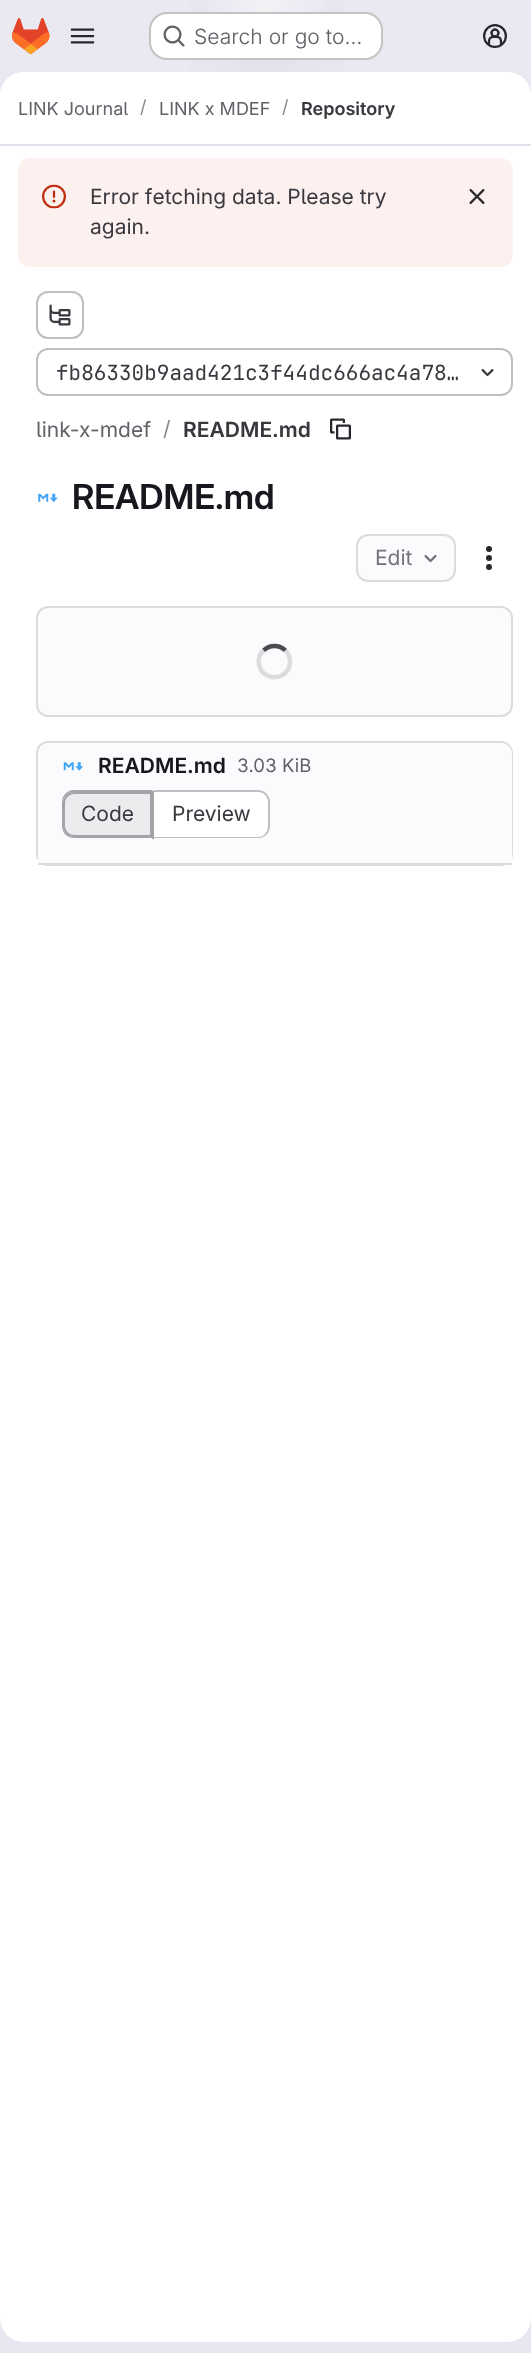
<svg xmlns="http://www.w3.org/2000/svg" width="531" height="2353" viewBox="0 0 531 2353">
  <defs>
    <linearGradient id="g1" gradientUnits="userSpaceOnUse" x1="475" y1="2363" x2="56" y2="-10"><stop offset="0" stop-color="#e8e6f0"/><stop offset="0.7" stop-color="#eae9f2"/></linearGradient>
    <radialGradient id="g2" gradientUnits="userSpaceOnUse" cx="0" cy="0" r="1" gradientTransform="matrix(266 0 0 2354 266 0)"><stop offset="0" stop-color="#e4e2ed"/><stop offset="0.4" stop-color="#e4e2ed" stop-opacity="0"/></radialGradient>
    <radialGradient id="g3" gradientUnits="userSpaceOnUse" cx="0" cy="0" r="1" gradientTransform="matrix(266 0 0 2354 266 0)"><stop offset="0" stop-color="#e4e2ec"/><stop offset="0.28" stop-color="#e4e2ec" stop-opacity="0"/></radialGradient>
    <radialGradient id="g4" gradientUnits="userSpaceOnUse" cx="266" cy="0" r="2368"><stop offset="0" stop-color="#ffffff" stop-opacity="0.6"/><stop offset="0.03" stop-color="#ffffff" stop-opacity="0"/></radialGradient>
  </defs>
  <rect width="100%" height="100%" fill="#ffffff"/>
  <rect x="0" y="0" width="531" height="2353" fill="url(#g1)"/>
  <rect x="189" y="0" width="154" height="72" fill="url(#g2)"/>
  <rect x="235" y="0" width="62" height="68" fill="url(#g3)"/>
  <rect x="207" y="0" width="118" height="60" fill="url(#g4)"/>
  <image x="12" y="18" width="38" height="36" href="img1.png"/>
  <image x="70" y="28" width="25" height="16" href="img2.png"/>
  <rect x="149" y="12" width="234" height="48" rx="18" fill="#ffffff"/>
  <rect x="150" y="13" width="232" height="46" rx="17" fill="none" stroke="#050506" stroke-opacity="0.24" stroke-width="2"/>
  <image x="163" y="25" width="22" height="22" href="img3.png"/>
  <text x="194" y="44" font-family="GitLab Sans" font-size="21" font-weight="300" fill="#626168">Search or go to…</text>
  <image x="483" y="24" width="24" height="24" href="img4.png"/>
  <rect x="0" y="72" width="531" height="2270" rx="24" fill="#ffffff"/>
  <path d="M24 72H507C520.5 72 531 82.5 531 96V146H0V96C0 82.5 10.5 72 24 72Z" fill="#ffffff"/>
  <rect x="0" y="144" width="531" height="2" fill="#e1dfec"/>
  <text x="18" y="115" font-family="GitLab Sans" font-size="18" fill="#626168">LINK Journal</text>
  <text x="140" y="113" font-family="GitLab Sans" font-size="18" fill="#89888d">/</text>
  <text x="159" y="115" font-family="GitLab Sans" font-size="18" fill="#626168">LINK x MDEF</text>
  <text x="282" y="113" font-family="GitLab Sans" font-size="18" fill="#89888d">/</text>
  <text x="301" y="115" font-family="'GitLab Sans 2'" font-size="18" font-weight="600" fill="#3a383f">Repository</text>
  <rect x="18" y="158" width="495" height="109" rx="12" fill="#fcf1ef"/>
  <image x="42" y="184" width="24" height="25" href="img5.png"/>
  <text x="90" y="204" font-family="GitLab Sans" font-size="21" fill="#3a383f">Error fetching data. Please try</text>
  <text x="90" y="234" font-family="GitLab Sans" font-size="21" fill="#3a383f">again.</text>
  <image x="469" y="189" width="16" height="15" href="img6.png"/>
  <rect x="37" y="292" width="46" height="46" rx="11" fill="none" stroke="#bfbfc3" stroke-width="2"/>
  <image x="49" y="304" width="22" height="22" href="img7.png"/>
  <rect x="37" y="349" width="475" height="46" rx="11" fill="none" stroke="#bfbfc3" stroke-width="2"/>
  <text x="56" y="380" font-family="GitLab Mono" font-size="21" fill="#3a383f">fb86330b9aad421c3f44dc666ac4a78…</text>
  <image x="481" y="369" width="13" height="8" href="img8.png"/>
  <text x="36" y="437" font-family="GitLab Sans" font-size="21" fill="#626168">link-x-mdef</text>
  <text x="163" y="436" font-family="GitLab Sans" font-size="21" fill="#89888d">/</text>
  <text x="183" y="437" font-family="'GitLab Sans 2'" font-size="21" font-weight="600" fill="#3a383f">README.md</text>
  <image x="330" y="418" width="21" height="22" href="img9.png"/>
  <image x="38" y="493" width="20" height="10" href="img10.png"/>
  <text x="72" y="509" font-family="GitLab Sans" font-size="34.5" font-weight="600" fill="#18171d">README.md</text>
  <rect x="357" y="535" width="98" height="46" rx="11" fill="#fbfafd" stroke="#dcdcde" stroke-width="2"/>
  <text x="375" y="565" font-family="GitLab Sans" font-size="21" fill="#737278">Edit</text>
  <image x="424" y="555" width="13" height="8" href="img11.png"/>
  <image x="486" y="546" width="6" height="24" href="img12.png"/>
  <rect x="37" y="607" width="475" height="109" rx="11" fill="#fbfafd" stroke="#dcdcde" stroke-width="2"/>
  <path d="M263.5 650.5C269.5 644.5 279.5 644.5 285.5 650.5" fill="none" stroke="#4c4b51" stroke-width="4.5"/>
  <path d="M285.5 650.5C288.5 653.5 290 657.5 290 661.5C290 680.5 262.5 683 259 664.5C258 659.5 259.5 654 263.5 650.5" fill="none" stroke="#dcdcde" stroke-width="4.5"/>
  <rect x="37" y="742" width="475" height="123" rx="11" fill="none" stroke="#dcdcde" stroke-width="2"/>
  <path d="M49 743H501C507 743 512 748 512 754V864H38V754C38 748 43 743 49 743Z" fill="#fbfafd"/>
  <rect x="38" y="863" width="474" height="2" fill="#dcdcde"/>
  <image x="63" y="762" width="21" height="9" href="img13.png"/>
  <text x="98" y="773" font-family="'GitLab Sans 2'" font-size="21" font-weight="600" fill="#18171d">README.md</text>
  <text x="237" y="772" font-family="GitLab Sans" font-size="18.5" fill="#626168">3.03 KiB</text>
  <path d="M74 793H151V836H74C68.5 836 64 831.5 64 826V803C64 797.5 68.5 793 74 793Z" fill="#ececef" stroke="#a4a3a8" stroke-width="2"/>
  <path d="M74 790H152V838H74C67 838 62 833 62 826V802C62 796 67 790 74 790ZM74 792H152V837H74C68 837 63 832 63 826V802C63 797 68 792 74 792Z" fill="#a4a3a8" fill-rule="evenodd"/>
  <text x="81" y="821" font-family="GitLab Sans" font-size="21" fill="#3a383f">Code</text>
  <path d="M153 792H258C264 792 269 797 269 803V826C269 832 264 837 258 837H153Z" fill="#ffffff"/>
  <path d="M153 790H258C265 790 270 796 270 802V826C270 833 265 838 258 838H153ZM153 792H258C264 792 268 797 268 802V826C268 832 264 837 258 837H153Z" fill="#bfbfc3" fill-rule="evenodd"/>
  <rect x="152" y="791" width="2" height="48" fill="#a4a3a8"/>
  <text x="172" y="821" font-family="GitLab Sans" font-size="21" fill="#3a383f">Preview</text>
</svg>
